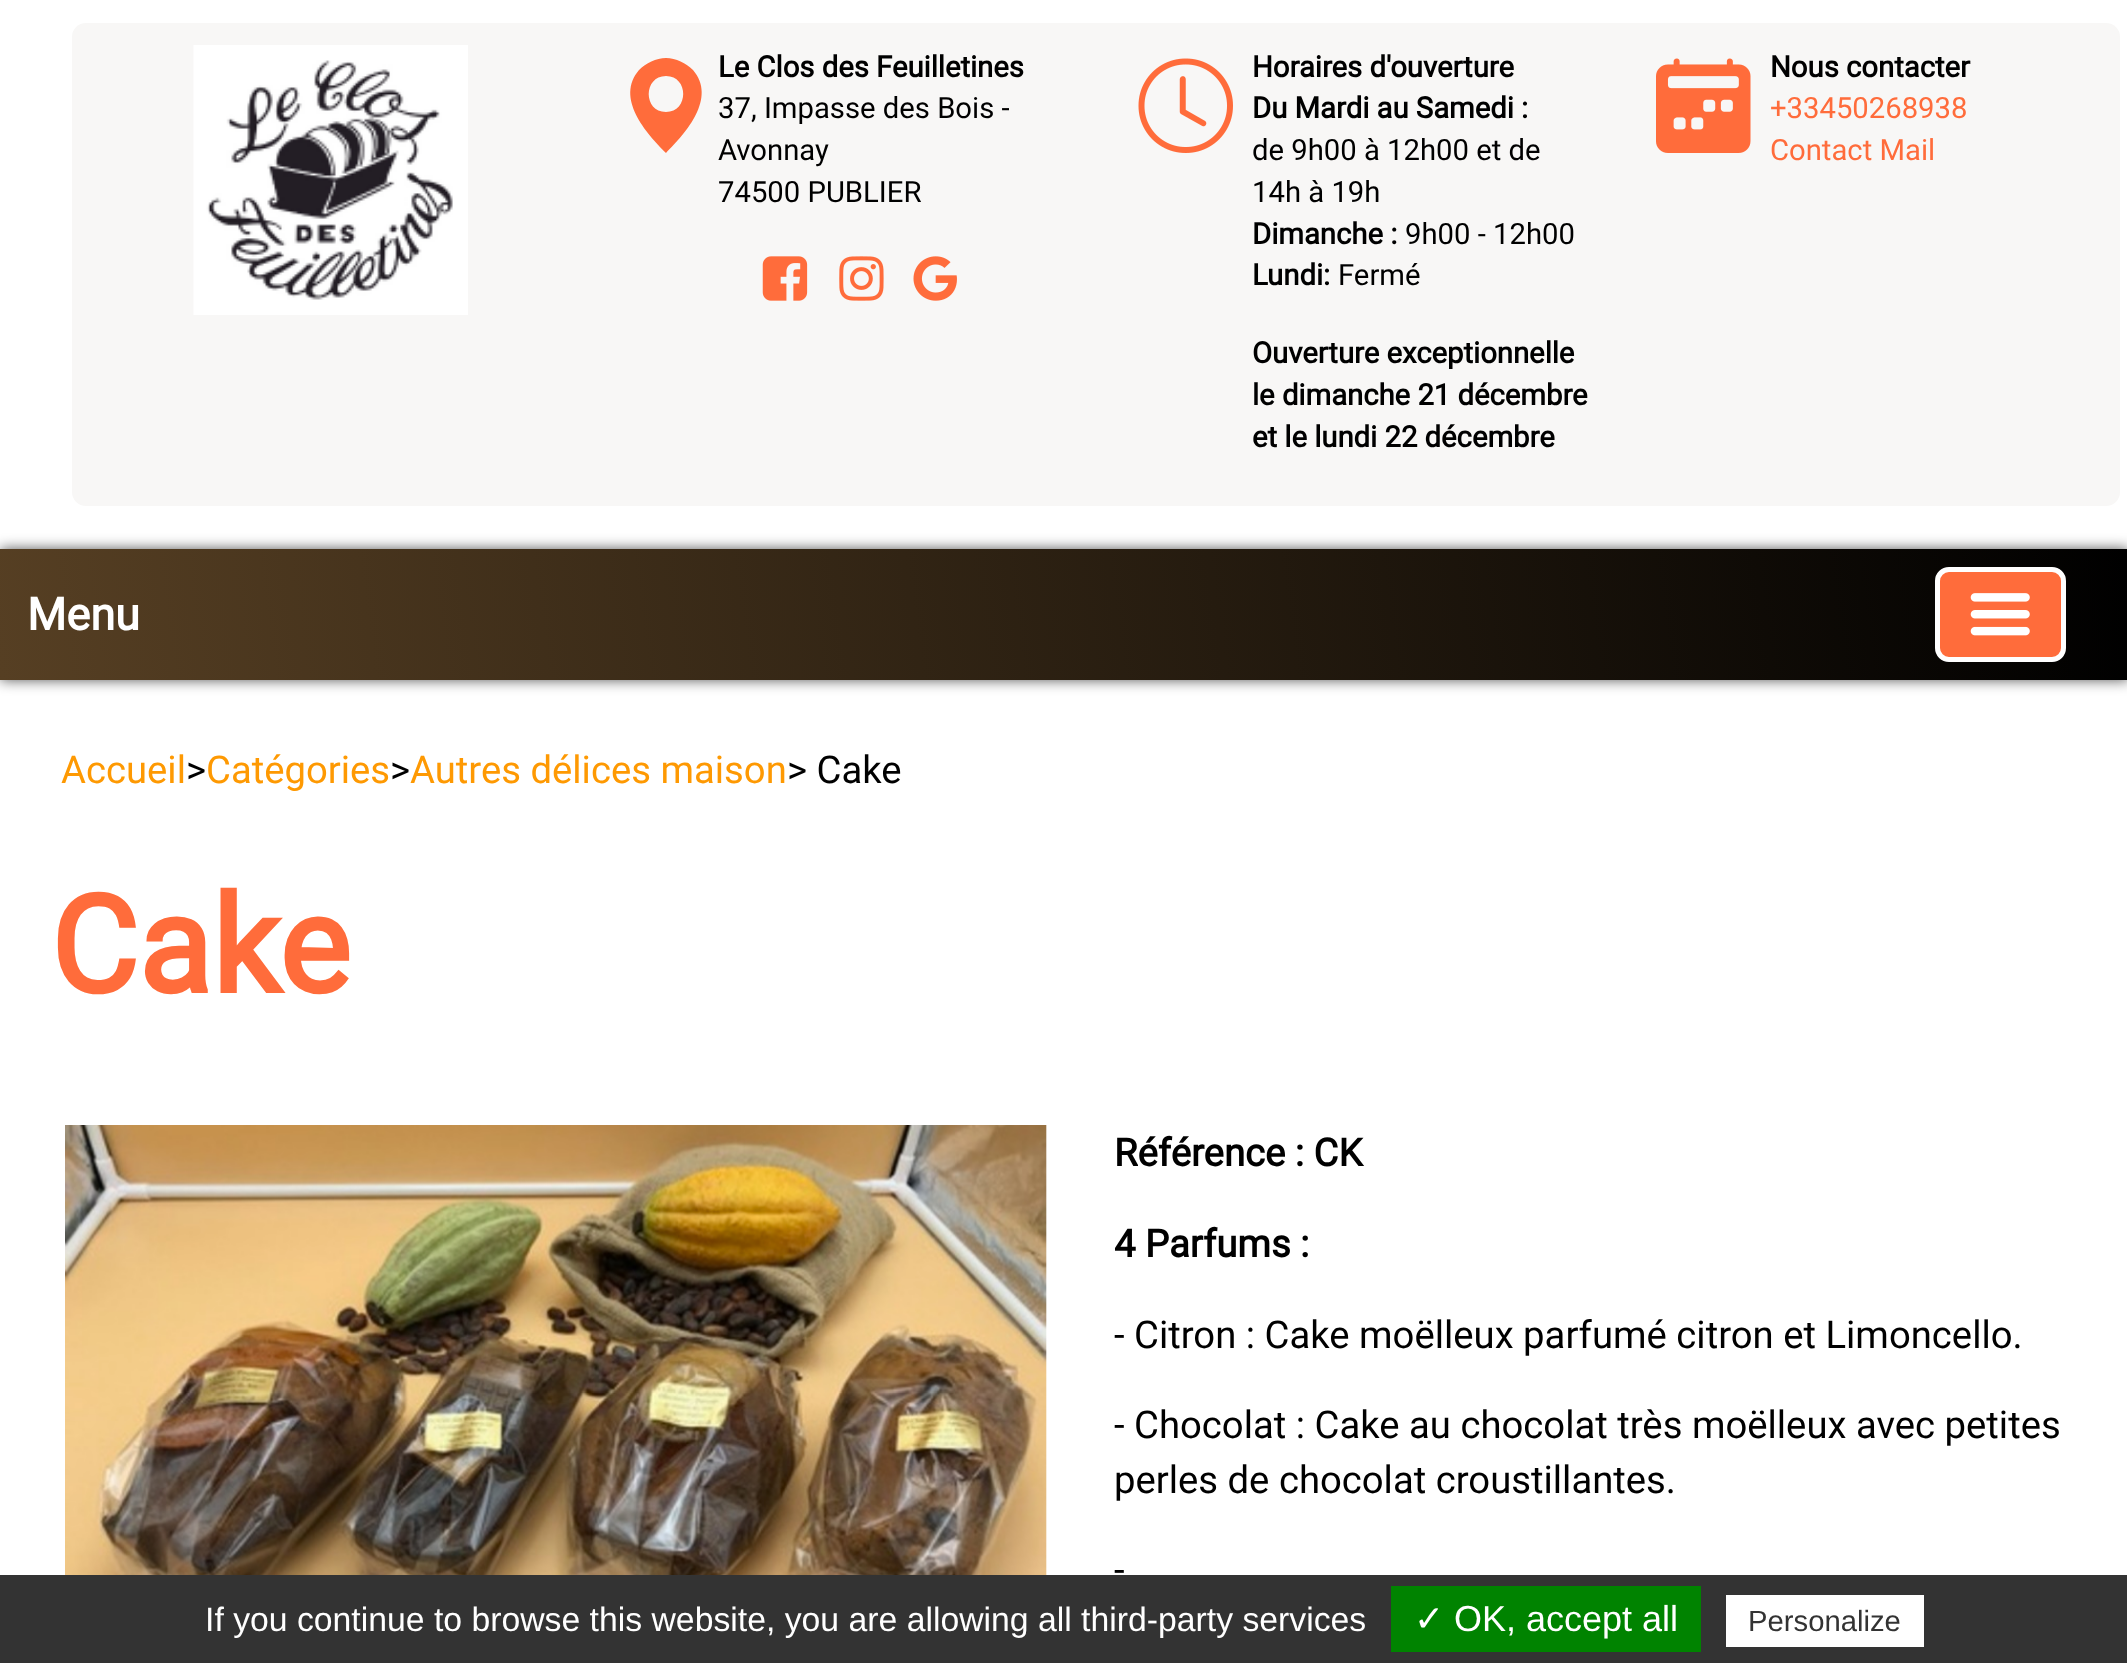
<svg xmlns="http://www.w3.org/2000/svg" width="2127" height="1663" viewBox="0 0 2127 1663">
  <defs>
    <filter id="blur1" x="-50%" y="-200%" width="200%" height="500%"><feGaussianBlur stdDeviation="7"/></filter>
    <linearGradient id="g1" gradientUnits="userSpaceOnUse" x1="2117" y1="466" x2="12" y2="762"><stop offset="0" stop-color="#000000"/><stop offset="1" stop-color="#563f23"/></linearGradient>
  </defs>
  <rect width="100%" height="100%" fill="#ffffff"/>
  <rect x="72" y="23" width="2048" height="483" rx="14" fill="#f8f7f6"/>
  <image x="193" y="45" width="275" height="270" href="img1.png"/>
  <path d="M666 153C686 133 717 98 693 70C686 63 676 58 666 58C656 58 646 63 639 70C615 98 646 133 666 153ZM666 112C643 112 643 76 666 76C689 76 689 112 666 112Z" fill="#ff6c3b"/>
  <text x="718" y="77" font-family="Roboto" font-size="29.25" font-weight="bold" fill="#000000">Le Clos des Feuilletines</text>
  <text x="718" y="118" font-family="Roboto" font-size="29.25" fill="#000000">37, Impasse des Bois -</text>
  <text x="718" y="160" font-family="Roboto" font-size="29.25" fill="#000000">Avonnay</text>
  <text x="718" y="202" font-family="Roboto" font-size="29.25" fill="#000000">74500 PUBLIER</text>
  <image x="762" y="256" width="46" height="45" href="img2.png"/>
  <image x="839" y="256" width="45" height="45" href="img3.png"/>
  <image x="913" y="256" width="44" height="45" href="img4.png"/>
  <image x="1138" y="58" width="95" height="95" href="img5.png"/>
  <text x="1252" y="77" font-family="Roboto" font-size="29.25" font-weight="bold" fill="#000000">Horaires d'ouverture</text>
  <text x="1252" y="118" font-family="Roboto" font-size="29.25" font-weight="bold" fill="#000000">Du Mardi au Samedi :</text>
  <text x="1252" y="160" font-family="Roboto" font-size="29.25" fill="#000000">de 9h00 à 12h00 et de</text>
  <text x="1252" y="202" font-family="Roboto" font-size="29.25" fill="#000000">14h à 19h</text>
  <text x="1252" y="244" font-family="Roboto" font-size="29.25" font-weight="bold" fill="#000000">Dimanche :</text>
  <text x="1405" y="244" font-family="Roboto" font-size="29.25" fill="#000000">9h00 - 12h00</text>
  <text x="1252" y="285" font-family="Roboto" font-size="29.25" font-weight="bold" fill="#000000">Lundi:</text>
  <text x="1338" y="285" font-family="Roboto" font-size="29.25" fill="#000000">Fermé</text>
  <text x="1252" y="363" font-family="Roboto" font-size="29.25" font-weight="bold" fill="#000000">Ouverture exceptionnelle</text>
  <text x="1252" y="405" font-family="Roboto" font-size="29.25" font-weight="bold" fill="#000000">le dimanche 21 décembre</text>
  <text x="1252" y="447" font-family="Roboto" font-size="29.25" font-weight="bold" fill="#000000">et le lundi 22 décembre</text>
  <image x="1656" y="58" width="95" height="95" href="img6.png"/>
  <text x="1770" y="77" font-family="Roboto" font-size="29.25" font-weight="bold" fill="#000000">Nous contacter</text>
  <text x="1770" y="118" font-family="Roboto" font-size="29.25" fill="#ff6c3b">+33450268938</text>
  <text x="1770" y="160" font-family="Roboto" font-size="29.25" fill="#ff6c3b">Contact Mail</text>
  <rect x="0" y="549" width="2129" height="131" fill="#000000" fill-opacity="0.67" filter="url(#blur1)"/>
  <rect x="0" y="549" width="2127" height="131" fill="url(#g1)"/>
  <text x="27" y="630" font-family="Roboto" font-size="45" font-weight="bold" fill="#ffffff">Menu</text>
  <rect x="1937.5" y="569.5" width="126" height="90" rx="11.5" fill="#ff6c3b" stroke="#ffffff" stroke-width="5"/>
  <image x="1970" y="593" width="60" height="43" href="img7.png"/>
  <text x="61" y="783" font-family="Roboto" font-size="38.25" fill="#fe9902">Accueil</text>
  <text x="186" y="783" font-family="Roboto" font-size="38.25" fill="#000000">&gt;</text>
  <text x="206" y="783" font-family="Roboto" font-size="38.25" fill="#fe9902">Catégories</text>
  <text x="390" y="783" font-family="Roboto" font-size="38.25" fill="#000000">&gt;</text>
  <text x="410" y="783" font-family="Roboto" font-size="38.25" fill="#fe9902">Autres délices maison</text>
  <text x="787" y="783" font-family="Roboto" font-size="38.25" fill="#000000">&gt; Cake</text>
  <text x="50" y="993" font-family="Roboto" font-size="135" font-weight="bold" fill="#ff6c3b">Cake</text>
  <image x="65" y="1125" width="982" height="450" href="img8.png"/>
  <text x="1114" y="1166" font-family="Roboto" font-size="38.25" font-weight="bold" fill="#000000">Référence : CK</text>
  <text x="1114" y="1257" font-family="Roboto" font-size="38.25" font-weight="bold" fill="#000000">4 Parfums :</text>
  <text x="1114" y="1348" font-family="Roboto" font-size="38.25" fill="#000000">- Citron : Cake moëlleux parfumé citron et Limoncello.</text>
  <text x="1114" y="1438" font-family="Roboto" font-size="38.25" fill="#000000">- Chocolat : Cake au chocolat très moëlleux avec petites</text>
  <text x="1114" y="1493" font-family="Roboto" font-size="38.25" fill="#000000">perles de chocolat croustillantes.</text>
  <text x="1114" y="1583" font-family="Roboto" font-size="38.25" fill="#000000">-</text>
  <rect x="0" y="1575" width="2127" height="88" fill="#333333"/>
  <text x="205" y="1631" font-family="Liberation Sans" font-size="33.75" fill="#ffffff">If you continue to browse this website, you are allowing all third-party services</text>
  <rect x="1391" y="1586" width="310" height="66" fill="#008300"/>
  <text x="1414" y="1631" font-family="DejaVu Sans" font-size="36" fill="#ffffff">✓</text>
  <text x="1454" y="1631" font-family="Liberation Sans" font-size="36" fill="#ffffff">OK, accept all</text>
  <rect x="1726" y="1595" width="198" height="52" fill="#ffffff"/>
  <text x="1748" y="1631" font-family="Liberation Sans" font-size="29.25" fill="#333333">Personalize</text>
</svg>
